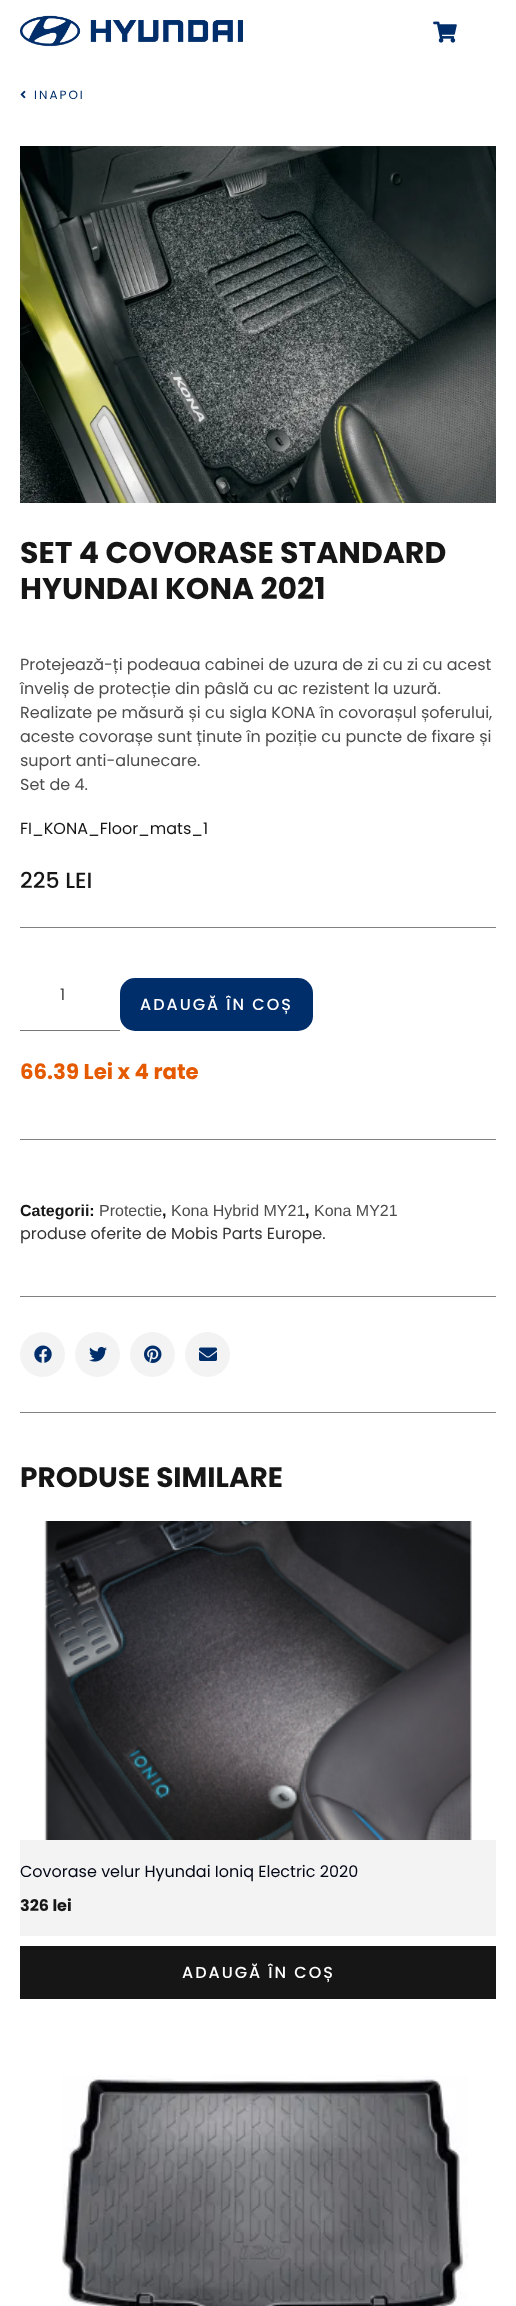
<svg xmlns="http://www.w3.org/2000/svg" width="516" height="2306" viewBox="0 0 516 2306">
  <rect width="100%" height="100%" fill="#ffffff"/>
  <image x="20" y="15" width="223" height="32" href="img1.png"/>
  <image x="433" y="21" width="24" height="22" href="img2.png"/>
  <image x="20" y="90" width="6" height="9" href="img3.png"/>
  <text x="34" y="99" font-family="Poppins" font-size="12" letter-spacing="2" fill="#002e6b">INAPOI</text>
  <image x="20" y="146" width="476" height="357" href="img4.png"/>
  <text x="20" y="563" font-family="Poppins" font-size="30" font-weight="bold" fill="#171616">SET 4 COVORASE STANDARD</text>
  <text x="20" y="599" font-family="Poppins" font-size="30" font-weight="bold" fill="#171616">HYUNDAI KONA 2021</text>
  <text x="20" y="670" font-family="Poppins" font-size="16" fill="#4c4c4c">Protejează-ți podeaua cabinei de uzura de zi cu zi cu acest</text>
  <text x="20" y="694" font-family="Poppins" font-size="16" fill="#4c4c4c">înveliș de protecție din pâslă cu ac rezistent la uzură.</text>
  <text x="20" y="718" font-family="Poppins" font-size="16" fill="#4c4c4c">Realizate pe măsură și cu sigla KONA în covorașul șoferului,</text>
  <text x="20" y="742" font-family="Poppins" font-size="16" fill="#4c4c4c">aceste covorașe sunt ținute în poziție cu puncte de fixare și</text>
  <text x="20" y="766" font-family="Poppins" font-size="16" fill="#4c4c4c">suport anti-alunecare.</text>
  <text x="20" y="790" font-family="Poppins" font-size="16" fill="#4c4c4c">Set de 4.</text>
  <text x="20" y="834" font-family="Poppins" font-size="16" fill="#171616">FI_KONA_Floor_mats_1</text>
  <text x="20" y="888" font-family="Poppins" font-size="22" font-weight="500" fill="#171616">225 LEI</text>
  <rect x="20" y="927" width="476" height="1" fill="#808080"/>
  <rect x="20" y="1030" width="100" height="1" fill="#767676"/>
  <text x="60" y="1000" font-family="Poppins" font-size="16" fill="#444444">1</text>
  <rect x="120" y="978" width="193" height="53" rx="15" fill="#002e6b"/>
  <text x="140" y="1010" font-family="Poppins" font-size="16" font-weight="500" letter-spacing="2" fill="#ffffff">ADAUGĂ ÎN COȘ</text>
  <text x="20" y="1079" font-family="Poppins" font-size="21.25" font-weight="bold" fill="#e55a00">66.39 Lei x 4 rate</text>
  <rect x="20" y="1139" width="476" height="1" fill="#808080"/>
  <text x="20" y="1216" font-family="Liberation Sans" font-size="16" font-weight="bold" fill="#171616">Categorii:</text>
  <text x="99" y="1216" font-family="Liberation Sans" font-size="16" fill="#4c4c4c">Protectie</text>
  <text x="162" y="1216" font-family="Liberation Sans" font-size="16" font-weight="bold" fill="#171616">,</text>
  <text x="171" y="1216" font-family="Liberation Sans" font-size="16" fill="#4c4c4c">Kona Hybrid MY21</text>
  <text x="305" y="1216" font-family="Liberation Sans" font-size="16" font-weight="bold" fill="#171616">,</text>
  <text x="314" y="1216" font-family="Liberation Sans" font-size="16" fill="#4c4c4c">Kona MY21</text>
  <text x="20" y="1239" font-family="Poppins" font-size="16" fill="#333333">produse oferite de Mobis Parts Europe.</text>
  <rect x="20" y="1296" width="476" height="1" fill="#808080"/>
  <rect x="20" y="1412" width="476" height="1" fill="#808080"/>
  <circle cx="42.5" cy="1354.5" r="22.5" fill="#f3f3f3"/>
  <image x="34" y="1345" width="18" height="18" href="img5.png"/>
  <circle cx="97.5" cy="1354.5" r="22.5" fill="#f3f3f3"/>
  <image x="89" y="1346" width="18" height="16" href="img6.png"/>
  <circle cx="152.5" cy="1354.5" r="22.5" fill="#f3f3f3"/>
  <image x="144" y="1345" width="18" height="18" href="img7.png"/>
  <circle cx="207.5" cy="1354.5" r="22.5" fill="#f3f3f3"/>
  <image x="199" y="1347" width="18" height="14" href="img8.png"/>
  <text x="20" y="1487" font-family="Poppins" font-size="28" font-weight="bold" fill="#171616">PRODUSE SIMILARE</text>
  <image x="44" y="1521" width="428" height="319" href="img9.png"/>
  <rect x="20" y="1840" width="476" height="96" fill="#f3f3f3"/>
  <text x="20" y="1877" font-family="Poppins" font-size="16" fill="#010614">Covorase velur Hyundai Ioniq Electric 2020</text>
  <text x="20" y="1911" font-family="Poppins" font-size="16" font-weight="bold" fill="#171616">326 lei</text>
  <rect x="20" y="1946" width="476" height="53" fill="#171616"/>
  <text x="182" y="1978" font-family="Poppins" font-size="16" font-weight="500" letter-spacing="2" fill="#ffffff">ADAUGĂ ÎN COȘ</text>
  <image x="62" y="2075" width="406" height="231" href="img10.png"/>
</svg>
